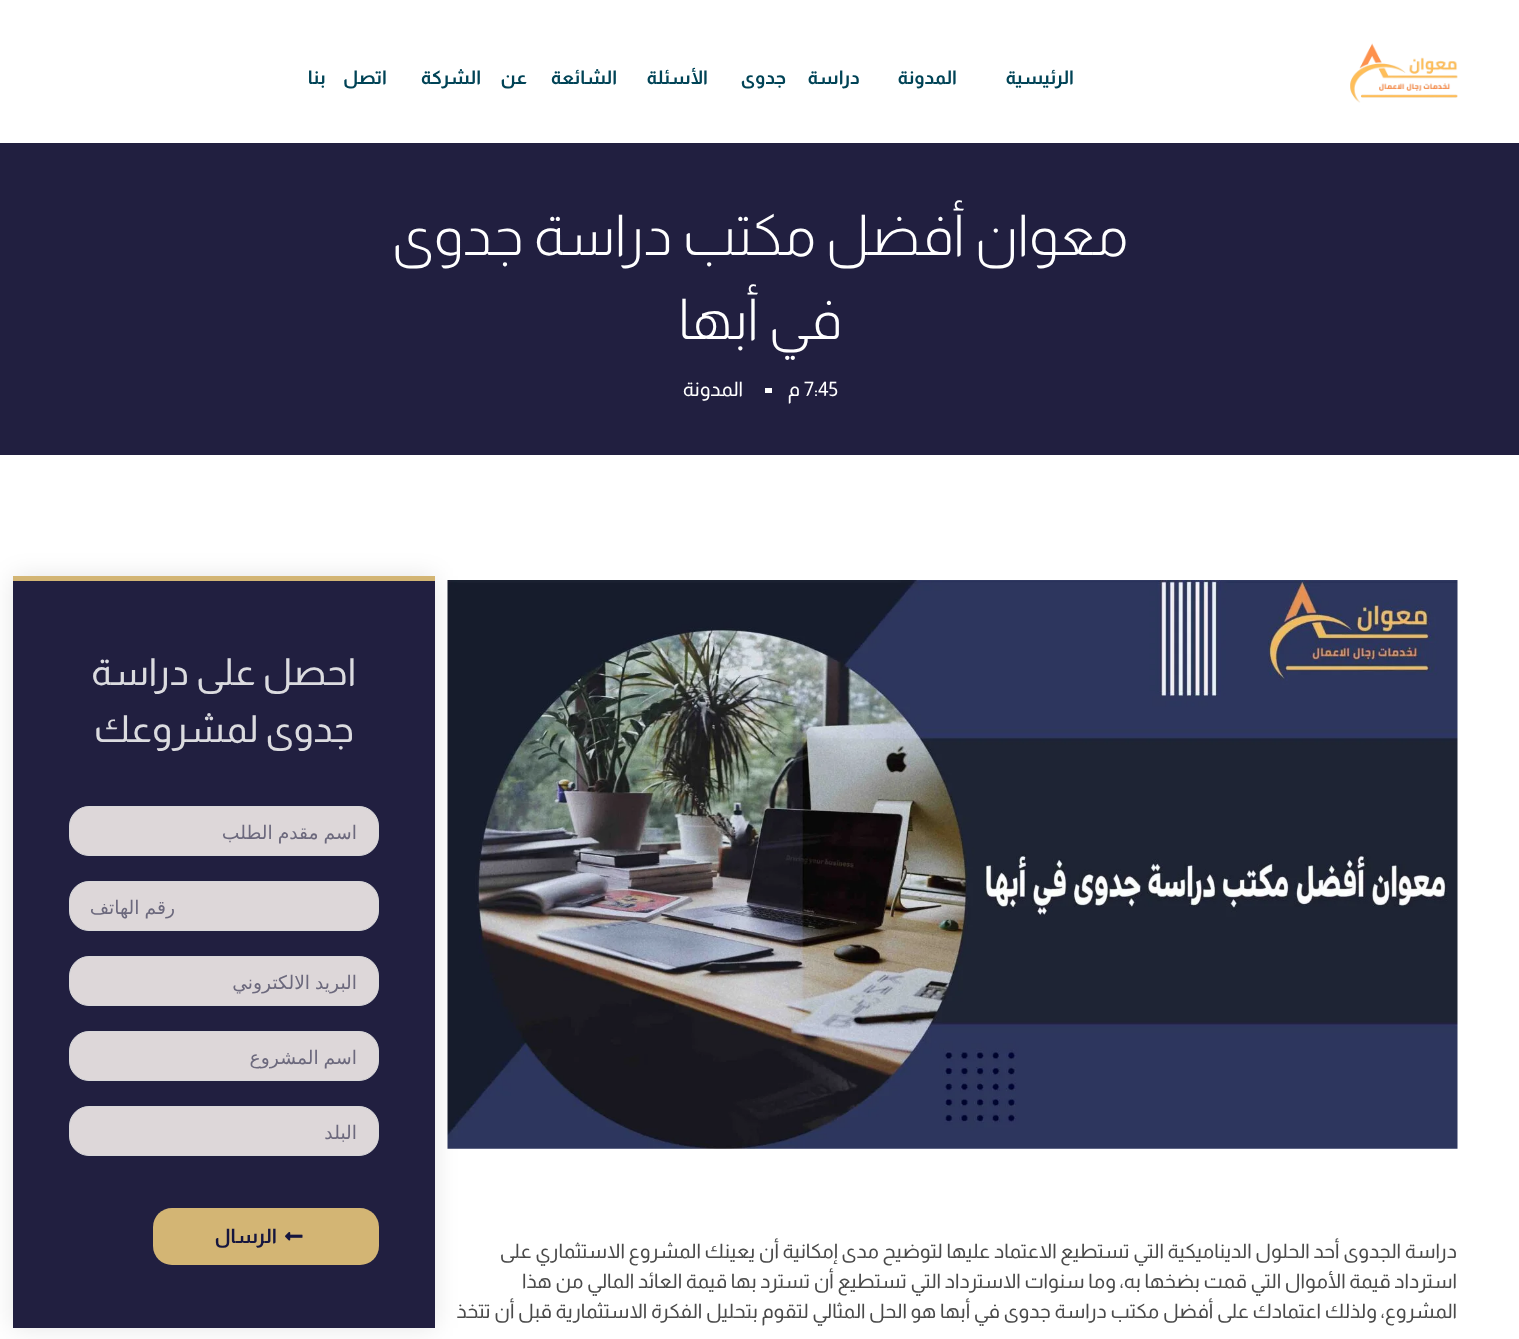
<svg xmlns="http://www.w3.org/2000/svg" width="1519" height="1339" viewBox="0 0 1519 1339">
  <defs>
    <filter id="blur1" x="-50%" y="-200%" width="200%" height="500%"><feGaussianBlur stdDeviation="12.5"/></filter>
  </defs>
  <rect width="100%" height="100%" fill="#ffffff"/>
  <image x="1350" y="43" width="108" height="60" href="img1.png"/>
  <text x="1074" y="84" font-family="Almarai" font-size="18.75" font-weight="bold" letter-spacing="-1.75" direction="rtl" fill="#004356">الرئيسية</text>
  <text x="957" y="84" font-family="Almarai" font-size="18.75" font-weight="bold" letter-spacing="-1.75" direction="rtl" fill="#004356">المدونة</text>
  <text x="860" y="84" word-spacing="18" font-family="Almarai" font-size="18.75" font-weight="bold" letter-spacing="-1.75" direction="rtl" fill="#004356">دراسة جدوى</text>
  <text x="708" y="84" word-spacing="26" font-family="Almarai" font-size="18.75" font-weight="bold" letter-spacing="-1.75" direction="rtl" fill="#004356">الأسئلة الشائعة</text>
  <text x="527" y="84" word-spacing="16" font-family="Almarai" font-size="18.75" font-weight="bold" letter-spacing="-1.75" direction="rtl" fill="#004356">عن الشركة</text>
  <text x="387" y="84" word-spacing="14" font-family="Almarai" font-size="18.75" font-weight="bold" letter-spacing="-1.75" direction="rtl" fill="#004356">اتصل بنا</text>
  <rect x="0" y="143" width="1519" height="312" fill="#211f40"/>
  <text x="1128" y="255" font-family="Almarai" font-size="56.25" font-weight="300" direction="rtl" fill="#ffffff">معوان أفضل مكتب دراسة جدوى</text>
  <text x="842" y="339" font-family="Almarai" font-size="56.25" font-weight="300" direction="rtl" fill="#ffffff">في أبها</text>
  <text x="804" y="396" font-family="Almarai" font-size="20" fill="#ffffff">7:45</text>
  <text x="800" y="396" font-family="Almarai" font-size="20" direction="rtl" fill="#ffffff">م</text>
  <rect x="765" y="388" width="7" height="5" fill="#ffffff"/>
  <text x="743" y="396" font-family="Almarai" font-size="20" direction="rtl" fill="#ffffff">المدونة</text>
  <image x="447" y="580" width="1011" height="569" href="img3.png"/>
  <rect x="13" y="576" width="422" height="752" fill="#000000" fill-opacity="0.1" filter="url(#blur1)"/>
  <rect x="13" y="576" width="422" height="5" fill="#d3b574"/>
  <rect x="13" y="581" width="422" height="747" fill="#211f40"/>
  <text x="356" y="685" font-family="Almarai" font-size="37.5" direction="rtl" fill="#dbdbdf">احصل على دراسة</text>
  <text x="354" y="742" font-family="Almarai" font-size="37.5" direction="rtl" fill="#dbdbdf">جدوى لمشروعك</text>
  <rect x="69.5" y="806.5" width="309" height="49" rx="19.5" fill="#ddd7d9" stroke="#d7d7d9"/>
  <text x="357" y="839" word-spacing="-1" font-family="DejaVu Sans" font-size="18.75" direction="rtl" fill="#6c697d">اسم مقدم الطلب</text>
  <rect x="69.5" y="881.5" width="309" height="49" rx="19.5" fill="#ddd7d9" stroke="#d7d7d9"/>
  <text x="175" y="914" word-spacing="-1" font-family="DejaVu Sans" font-size="18.75" direction="rtl" fill="#6c697d">رقم الهاتف</text>
  <rect x="69.5" y="956.5" width="309" height="49" rx="19.5" fill="#ddd7d9" stroke="#d7d7d9"/>
  <text x="357" y="989" word-spacing="-1" font-family="DejaVu Sans" font-size="18.75" direction="rtl" fill="#6c697d">البريد الالكتروني</text>
  <rect x="69.5" y="1031.5" width="309" height="49" rx="19.5" fill="#ddd7d9" stroke="#d7d7d9"/>
  <text x="357" y="1064" word-spacing="-1" font-family="DejaVu Sans" font-size="18.75" direction="rtl" fill="#6c697d">اسم المشروع</text>
  <rect x="69.5" y="1106.5" width="309" height="49" rx="19.5" fill="#ddd7d9" stroke="#d7d7d9"/>
  <text x="357" y="1139" font-family="DejaVu Sans" font-size="18.75" direction="rtl" fill="#6c697d">البلد</text>
  <rect x="153" y="1208" width="226" height="57" rx="19" fill="#d3b574"/>
  <image x="285" y="1232" width="18" height="9" href="img2.png"/>
  <text x="277" y="1243" font-family="Almarai" font-size="20" font-weight="bold" direction="rtl" fill="#16163f">الرسال</text>
  <text x="1457" y="1258" font-family="Almarai" font-size="20" direction="rtl" fill="#4a4a4a">دراسة الجدوى أحد الحلول الديناميكية التي تستطيع الاعتماد عليها لتوضيح مدى إمكانية أن يعينك المشروع الاستثماري على</text>
  <text x="1457" y="1288" font-family="Almarai" font-size="20" direction="rtl" fill="#4a4a4a">استرداد قيمة الأموال التي قمت بضخها به، وما سنوات الاسترداد التي تستطيع أن تسترد بها قيمة العائد المالي من هذا</text>
  <text x="1457" y="1318" font-family="Almarai" font-size="20" direction="rtl" fill="#4a4a4a">المشروع، ولذلك اعتمادك على أفضل مكتب دراسة جدوى في أبها هو الحل المثالي لتقوم بتحليل الفكرة الاستثمارية قبل أن تتخذ</text>
</svg>
